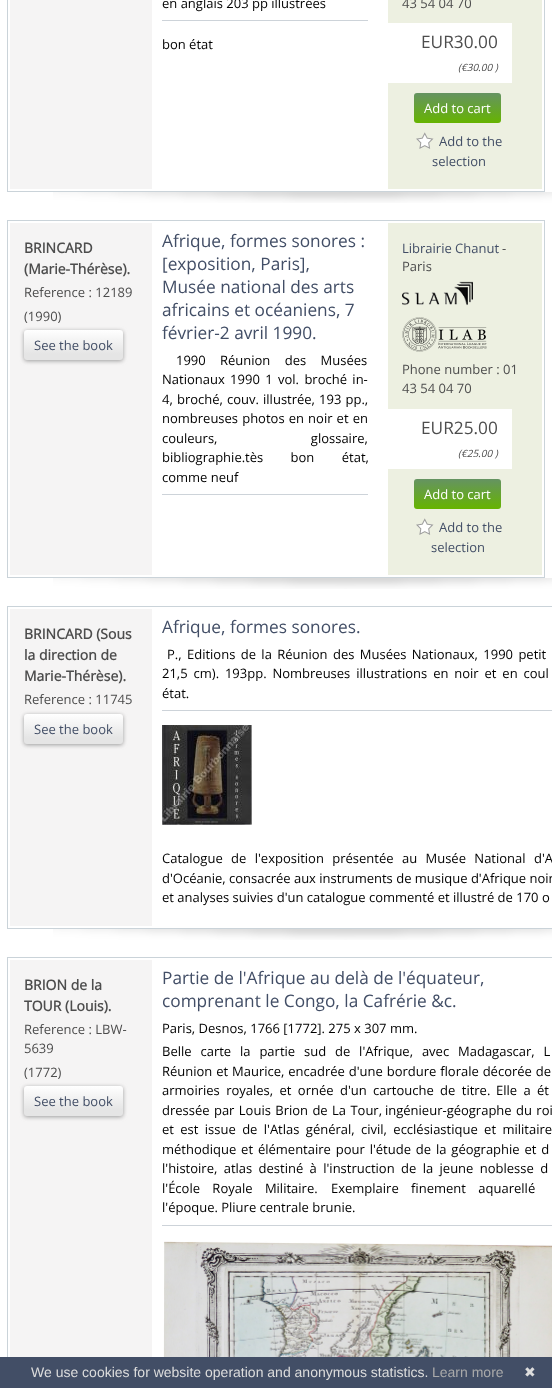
<svg xmlns="http://www.w3.org/2000/svg" width="552" height="1388" viewBox="0 0 552 1388">
  <defs>
    <linearGradient id="g1" gradientUnits="userSpaceOnUse" x1="458" y1="93" x2="458" y2="123"><stop offset="0" stop-color="#659362"/><stop offset="1" stop-color="#66b400"/></linearGradient>
    <filter id="blur1" x="-50%" y="-200%" width="200%" height="500%"><feGaussianBlur stdDeviation="2"/></filter>
    <linearGradient id="g2" gradientUnits="userSpaceOnUse" x1="74" y1="330" x2="74" y2="360"><stop offset="0" stop-color="#ffffff"/><stop offset="0.8" stop-color="#e5e5e5"/></linearGradient>
    <linearGradient id="g3" gradientUnits="userSpaceOnUse" x1="458" y1="479" x2="458" y2="509"><stop offset="0" stop-color="#659362"/><stop offset="1" stop-color="#66b400"/></linearGradient>
    <linearGradient id="g4" gradientUnits="userSpaceOnUse" x1="74" y1="714" x2="74" y2="744"><stop offset="0" stop-color="#ffffff"/><stop offset="0.8" stop-color="#e5e5e5"/></linearGradient>
    <linearGradient id="g5" gradientUnits="userSpaceOnUse" x1="74" y1="1086" x2="74" y2="1116"><stop offset="0" stop-color="#ffffff"/><stop offset="0.8" stop-color="#e5e5e5"/></linearGradient>
  </defs>
  <rect width="100%" height="100%" fill="#ffffff"/>
  <rect x="7.5" y="-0.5" width="537" height="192" fill="none" stroke="#cad3d9"/>
  <rect x="10" y="0" width="142" height="189" fill="#f5f4f4"/>
  <text x="162" y="8" font-family="Open Sans" font-size="13" fill="#000000">en anglais 203 pp illustrées</text>
  <rect x="162" y="20" width="206" height="1" fill="#cdd3d9"/>
  <text x="162" y="49" font-family="Open Sans" font-size="13" fill="#000000"> bon état </text>
  <rect x="388" y="0" width="154" height="189" fill="#edf0e1"/>
  <text x="402" y="8" font-family="Open Sans" font-size="13" fill="#4d4d4d">43 54 04 70</text>
  <rect x="388" y="23" width="124" height="60" fill="#ffffff"/>
  <text x="421" y="48" font-family="Open Sans" font-size="17.25" fill="#4d4d4d">EUR30.00</text>
  <text x="458" y="71" font-family="Open Sans" font-size="10" font-style="italic" fill="#4d4d4d">(€30.00 )</text>
  <rect x="414" y="93" width="87" height="30" rx="3" fill="url(#g1)"/>
  <text x="424" y="113" font-family="Open Sans" font-size="13" fill="#ffffff">Add to cart</text>
  <image x="416" y="132" width="18" height="17" href="img1.png"/>
  <text x="439" y="146" font-family="Open Sans" font-size="13" fill="#424e66">Add to the</text>
  <text x="432" y="166" font-family="Open Sans" font-size="13" fill="#424e66">selection</text>
  <image x="53" y="192" width="499" height="11" href="img2.png"/>
  <rect x="7.5" y="220.5" width="537" height="357" fill="none" stroke="#cad3d9"/>
  <rect x="10" y="223" width="142" height="352" fill="#f5f4f4"/>
  <text x="24" y="253" font-family="Open Sans" font-size="14" font-weight="bold" fill="#4d4d4d"> BRINCARD</text>
  <text x="24" y="274" font-family="Open Sans" font-size="14" font-weight="bold" fill="#4d4d4d">(Marie-Thérèse). </text>
  <text x="24" y="297" font-family="Open Sans" font-size="13" fill="#4d4d4d">Reference : 12189</text>
  <text x="24" y="321" font-family="Open Sans" font-size="13" fill="#4d4d4d">(1990)</text>
  <rect x="24" y="331" width="99" height="30" rx="3" fill="#9b9b9b" filter="url(#blur1)"/>
  <rect x="24" y="330" width="99" height="30" rx="3" fill="url(#g2)"/>
  <text x="34" y="350" font-family="Open Sans" font-size="13" fill="#424e66">See the book</text>
  <text x="162" y="247" font-family="Open Sans" font-size="17.25" fill="#424e66">Afrique, formes sonores :</text>
  <text x="162" y="270" font-family="Open Sans" font-size="17.25" fill="#424e66">[exposition, Paris],</text>
  <text x="162" y="293" font-family="Open Sans" font-size="17.25" fill="#424e66">Musée national des arts</text>
  <text x="162" y="316" font-family="Open Sans" font-size="17.25" fill="#424e66">africains et océaniens, 7</text>
  <text x="162" y="339" font-family="Open Sans" font-size="17.25" fill="#424e66">février-2 avril 1990. </text>
  <text x="176" y="365" font-family="Open Sans" font-size="13" fill="#000000">1990</text>
  <text x="220" y="365" word-spacing="11" font-family="Open Sans" font-size="13" fill="#000000">Réunion des Musées</text>
  <text x="162" y="384" word-spacing="2" font-family="Open Sans" font-size="13" fill="#000000">Nationaux 1990 1 vol. broché in-</text>
  <text x="162" y="404" word-spacing="0.75" font-family="Open Sans" font-size="13" fill="#000000">4, broché, couv. illustrée, 193 pp.,</text>
  <text x="162" y="423" word-spacing="0.75" font-family="Open Sans" font-size="13" fill="#000000">nombreuses photos en noir et en</text>
  <text x="162" y="443" word-spacing="90" font-family="Open Sans" font-size="13" fill="#000000">couleurs, glossaire,</text>
  <text x="162" y="462" word-spacing="24" font-family="Open Sans" font-size="13" fill="#000000">bibliographie.tès bon état,</text>
  <text x="162" y="482" font-family="Open Sans" font-size="13" fill="#000000">comme neuf</text>
  <rect x="162" y="494" width="206" height="1" fill="#cdd3d9"/>
  <rect x="388" y="223" width="154" height="352" fill="#edf0e1"/>
  <text x="402" y="253" font-family="Open Sans" font-size="13" fill="#424e66">Librairie Chanut</text>
  <text x="502" y="253" font-family="Open Sans" font-size="13" fill="#4d4d4d">-</text>
  <text x="402" y="271" font-family="Open Sans" font-size="13" fill="#4d4d4d">Paris</text>
  <image x="402" y="281" width="71" height="25" href="img3.png"/>
  <image x="402" y="317" width="85" height="35" href="img4.png"/>
  <text x="402" y="374" font-family="Open Sans" font-size="13" fill="#4d4d4d">Phone number : 01</text>
  <text x="402" y="393" font-family="Open Sans" font-size="13" fill="#4d4d4d">43 54 04 70</text>
  <rect x="388" y="409" width="124" height="60" fill="#ffffff"/>
  <text x="421" y="434" font-family="Open Sans" font-size="17.25" fill="#4d4d4d">EUR25.00</text>
  <text x="458" y="457" font-family="Open Sans" font-size="10" font-style="italic" fill="#4d4d4d">(€25.00 )</text>
  <rect x="414" y="479" width="87" height="30" rx="3" fill="url(#g3)"/>
  <text x="424" y="499" font-family="Open Sans" font-size="13" fill="#ffffff">Add to cart</text>
  <image x="416" y="518" width="18" height="17" href="img1.png"/>
  <text x="439" y="532" font-family="Open Sans" font-size="13" fill="#424e66">Add to the</text>
  <text x="431" y="552" font-family="Open Sans" font-size="13" fill="#424e66">selection</text>
  <image x="53" y="578" width="499" height="11" href="img2.png"/>
  <rect x="7.5" y="606.5" width="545" height="322" fill="none" stroke="#cad3d9"/>
  <rect x="10" y="609" width="142" height="317" fill="#f5f4f4"/>
  <text x="24" y="639" font-family="Open Sans" font-size="14" font-weight="bold" fill="#4d4d4d">BRINCARD (Sous</text>
  <text x="24" y="660" font-family="Open Sans" font-size="14" font-weight="bold" fill="#4d4d4d">la direction de</text>
  <text x="24" y="681" font-family="Open Sans" font-size="14" font-weight="bold" fill="#4d4d4d">Marie-Thérèse).</text>
  <text x="24" y="704" font-family="Open Sans" font-size="13" fill="#4d4d4d">Reference : 11745</text>
  <rect x="24" y="715" width="99" height="30" rx="3" fill="#9b9b9b" filter="url(#blur1)"/>
  <rect x="24" y="714" width="99" height="30" rx="3" fill="url(#g4)"/>
  <text x="34" y="734" font-family="Open Sans" font-size="13" fill="#424e66">See the book</text>
  <text x="162" y="633" font-family="Open Sans" font-size="17.25" fill="#424e66">Afrique, formes sonores.</text>
  <text x="167" y="659" word-spacing="2" font-family="Open Sans" font-size="13" fill="#000000">P., Editions de la Réunion des Musées Nationaux, 1990 petit</text>
  <text x="162" y="678" word-spacing="2.5" font-family="Open Sans" font-size="13" fill="#000000">21,5 cm). 193pp. Nombreuses illustrations en noir et en coul</text>
  <text x="162" y="698" font-family="Open Sans" font-size="13" fill="#000000">état. </text>
  <rect x="162" y="710" width="390" height="1" fill="#cdd3d9"/>
  <image x="162" y="725" width="90" height="100" href="img5.png"/>
  <text x="162" y="863" word-spacing="5" font-family="Open Sans" font-size="13" fill="#000000">Catalogue de l'exposition présentée au Musée National d'A</text>
  <text x="162" y="883" font-family="Open Sans" font-size="13" fill="#000000">d'Océanie, consacrée aux instruments de musique d'Afrique noir</text>
  <text x="162" y="902" font-family="Open Sans" font-size="13" fill="#000000">et analyses suivies d'un catalogue commenté et illustré de 170 o</text>
  <image x="53" y="929" width="499" height="11" href="img2.png"/>
  <rect x="7.5" y="957.5" width="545" height="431" fill="none" stroke="#cad3d9"/>
  <rect x="10" y="960" width="142" height="397" fill="#f5f4f4"/>
  <text x="24" y="990" font-family="Open Sans" font-size="14" font-weight="bold" fill="#4d4d4d">BRION de la</text>
  <text x="24" y="1011" font-family="Open Sans" font-size="14" font-weight="bold" fill="#4d4d4d">TOUR (Louis).</text>
  <text x="24" y="1034" font-family="Open Sans" font-size="13" fill="#4d4d4d">Reference : LBW-</text>
  <text x="24" y="1053" font-family="Open Sans" font-size="13" fill="#4d4d4d">5639</text>
  <text x="24" y="1077" font-family="Open Sans" font-size="13" fill="#4d4d4d">(1772)</text>
  <rect x="24" y="1087" width="99" height="30" rx="3" fill="#9b9b9b" filter="url(#blur1)"/>
  <rect x="24" y="1086" width="99" height="30" rx="3" fill="url(#g5)"/>
  <text x="34" y="1106" font-family="Open Sans" font-size="13" fill="#424e66">See the book</text>
  <text x="162" y="984" font-family="Open Sans" font-size="17.25" fill="#424e66"> Partie de l'Afrique au delà de l'équateur,</text>
  <text x="162" y="1007" font-family="Open Sans" font-size="17.25" fill="#424e66">comprenant le Congo, la Cafrérie &amp;c.</text>
  <text x="162" y="1033" font-family="Open Sans" font-size="13" fill="#000000">Paris, Desnos, 1766 [1772]. 275 x 307 mm. </text>
  <text x="162" y="1056" word-spacing="5.5" font-family="Open Sans" font-size="13" fill="#000000">Belle carte la partie sud de l'Afrique, avec Madagascar, L</text>
  <text x="162" y="1076" word-spacing="0.5" font-family="Open Sans" font-size="13" fill="#000000">Réunion et Maurice, encadrée d'une bordure florale décorée de</text>
  <text x="162" y="1095" word-spacing="3" font-family="Open Sans" font-size="13" fill="#000000">armoiries royales, et ornée d'un cartouche de titre.</text>
  <text x="496" y="1095" word-spacing="3" font-family="Open Sans" font-size="13" fill="#000000">Elle a ét</text>
  <text x="162" y="1115" word-spacing="1" font-family="Open Sans" font-size="13" fill="#000000">dressée par Louis Brion de La Tour,</text>
  <text x="385" y="1115" word-spacing="1" font-family="Open Sans" font-size="13" fill="#000000">ingénieur-géographe du roi</text>
  <text x="162" y="1134" word-spacing="3" font-family="Open Sans" font-size="13" fill="#000000">et est issue de l'Atlas général, civil, ecclésiastique et militaire</text>
  <text x="162" y="1154" word-spacing="1.5" font-family="Open Sans" font-size="13" fill="#000000">méthodique et élémentaire pour l'étude de la géographie et d</text>
  <text x="162" y="1173" word-spacing="3" font-family="Open Sans" font-size="13" fill="#000000">l'histoire, atlas destiné à l'instruction de la jeune noblesse d</text>
  <text x="162" y="1193" word-spacing="9" font-family="Open Sans" font-size="13" fill="#000000">l'École Royale Militaire.</text>
  <text x="331" y="1193" word-spacing="9" font-family="Open Sans" font-size="13" fill="#000000">Exemplaire finement aquarellé</text>
  <text x="162" y="1212" font-family="Open Sans" font-size="13" fill="#000000">l'époque. Pliure centrale brunie.</text>
  <rect x="162" y="1225" width="390" height="1" fill="#cdd3d9"/>
  <image x="163" y="1241" width="389" height="116" href="img6.png"/>
  <rect x="0" y="1357" width="552" height="31" fill="#424e66"/>
  <text x="31" y="1377" font-family="Liberation Sans" font-size="14" fill="#dddddd">We use cookies for website operation and anonymous statistics.</text>
  <text x="432" y="1377" font-family="Liberation Sans" font-size="14" fill="#aaaaaa">Learn more</text>
  <text x="524" y="1377" font-family="DejaVu Sans" font-size="14" fill="#dddddd">✖</text>
</svg>
